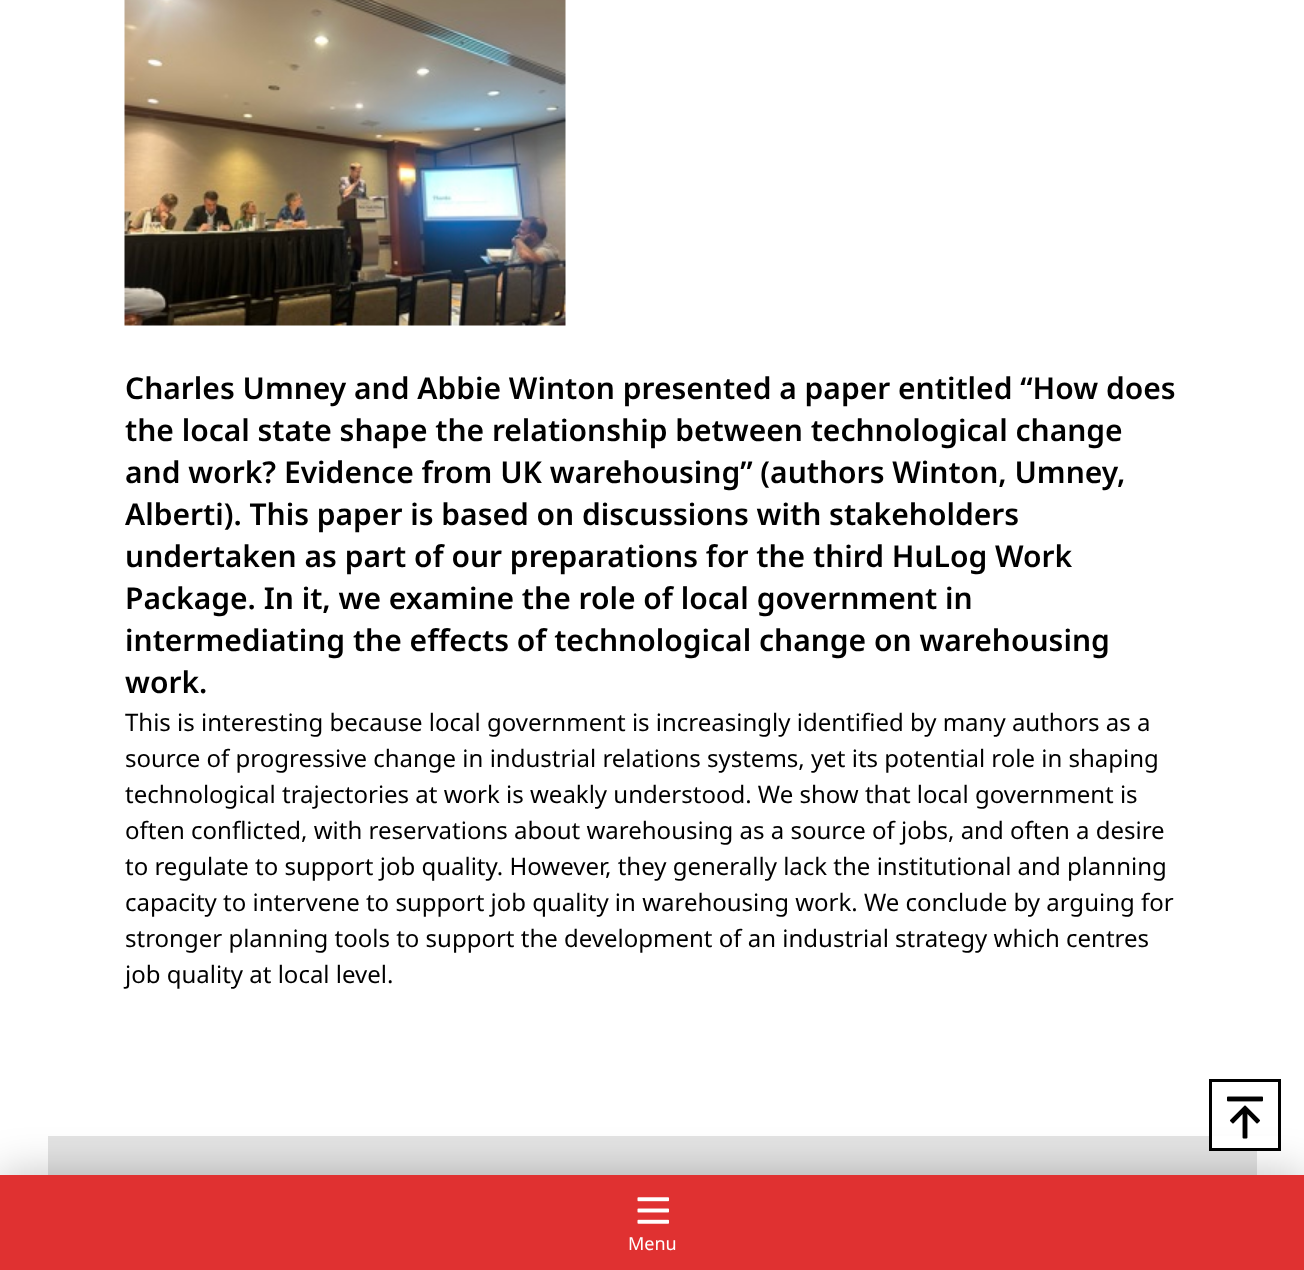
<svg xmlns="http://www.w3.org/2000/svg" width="1304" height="1270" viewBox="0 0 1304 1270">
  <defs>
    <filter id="blur1" x="-50%" y="-200%" width="200%" height="500%"><feGaussianBlur stdDeviation="22.5"/></filter>
  </defs>
  <rect width="100%" height="100%" fill="#ffffff"/>
  <image x="124" y="0" width="442" height="326" href="img1.png"/>
  <text x="125" y="399" font-family="Noto Sans" font-size="30" font-weight="600" fill="#000000">Charles Umney and Abbie Winton presented a paper entitled “How does</text>
  <text x="125" y="441" font-family="Noto Sans" font-size="30" font-weight="600" fill="#000000">the local state shape the relationship between technological change</text>
  <text x="125" y="483" font-family="Noto Sans" font-size="30" font-weight="600" fill="#000000">and work? Evidence from UK warehousing” (authors Winton, Umney,</text>
  <text x="125" y="525" font-family="Noto Sans" font-size="30" font-weight="600" fill="#000000">Alberti). This paper is based on discussions with stakeholders</text>
  <text x="125" y="567" font-family="Noto Sans" font-size="30" font-weight="600" fill="#000000">undertaken as part of our preparations for the third HuLog Work</text>
  <text x="125" y="609" font-family="Noto Sans" font-size="30" font-weight="600" fill="#000000">Package. In it, we examine the role of local government in</text>
  <text x="125" y="651" font-family="Noto Sans" font-size="30" font-weight="600" fill="#000000">intermediating the effects of technological change on warehousing</text>
  <text x="125" y="693" font-family="Noto Sans" font-size="30" font-weight="600" fill="#000000">work.</text>
  <text x="125" y="731" font-family="Noto Sans" font-size="24" fill="#000000">This is interesting because local government is increasingly identified by many authors as a</text>
  <text x="125" y="767" font-family="Noto Sans" font-size="24" fill="#000000">source of progressive change in industrial relations systems, yet its potential role in shaping</text>
  <text x="125" y="803" font-family="Noto Sans" font-size="24" fill="#000000">technological trajectories at work is weakly understood. We show that local government is</text>
  <text x="125" y="839" font-family="Noto Sans" font-size="24" fill="#000000">often conflicted, with reservations about warehousing as a source of jobs, and often a desire</text>
  <text x="125" y="875" font-family="Noto Sans" font-size="24" fill="#000000">to regulate to support job quality. However, they generally lack the institutional and planning</text>
  <text x="125" y="911" font-family="Noto Sans" font-size="24" fill="#000000">capacity to intervene to support job quality in warehousing work. We conclude by arguing for</text>
  <text x="125" y="947" font-family="Noto Sans" font-size="24" fill="#000000">stronger planning tools to support the development of an industrial strategy which centres</text>
  <text x="125" y="983" font-family="Noto Sans" font-size="24" fill="#000000">job quality at local level.</text>
  <rect x="48" y="1136" width="1209" height="39" fill="#e3e3e3"/>
  <rect x="0" y="1175" width="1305" height="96" fill="#000000" fill-opacity="0.25" filter="url(#blur1)"/>
  <rect x="1212" y="1136" width="66" height="12" fill="#ffffff"/>
  <rect x="1210.5" y="1080.5" width="69" height="69" fill="none" stroke="#000000" stroke-width="3"/>
  <image x="1227" y="1096" width="36" height="43" href="img2.png"/>
  <rect x="0" y="1175" width="1304" height="95" fill="#e03131"/>
  <image x="637" y="1197" width="32" height="27" href="img3.png"/>
  <text x="628" y="1250" font-family="Noto Sans" font-size="18" fill="#ffffff">Menu</text>
</svg>
